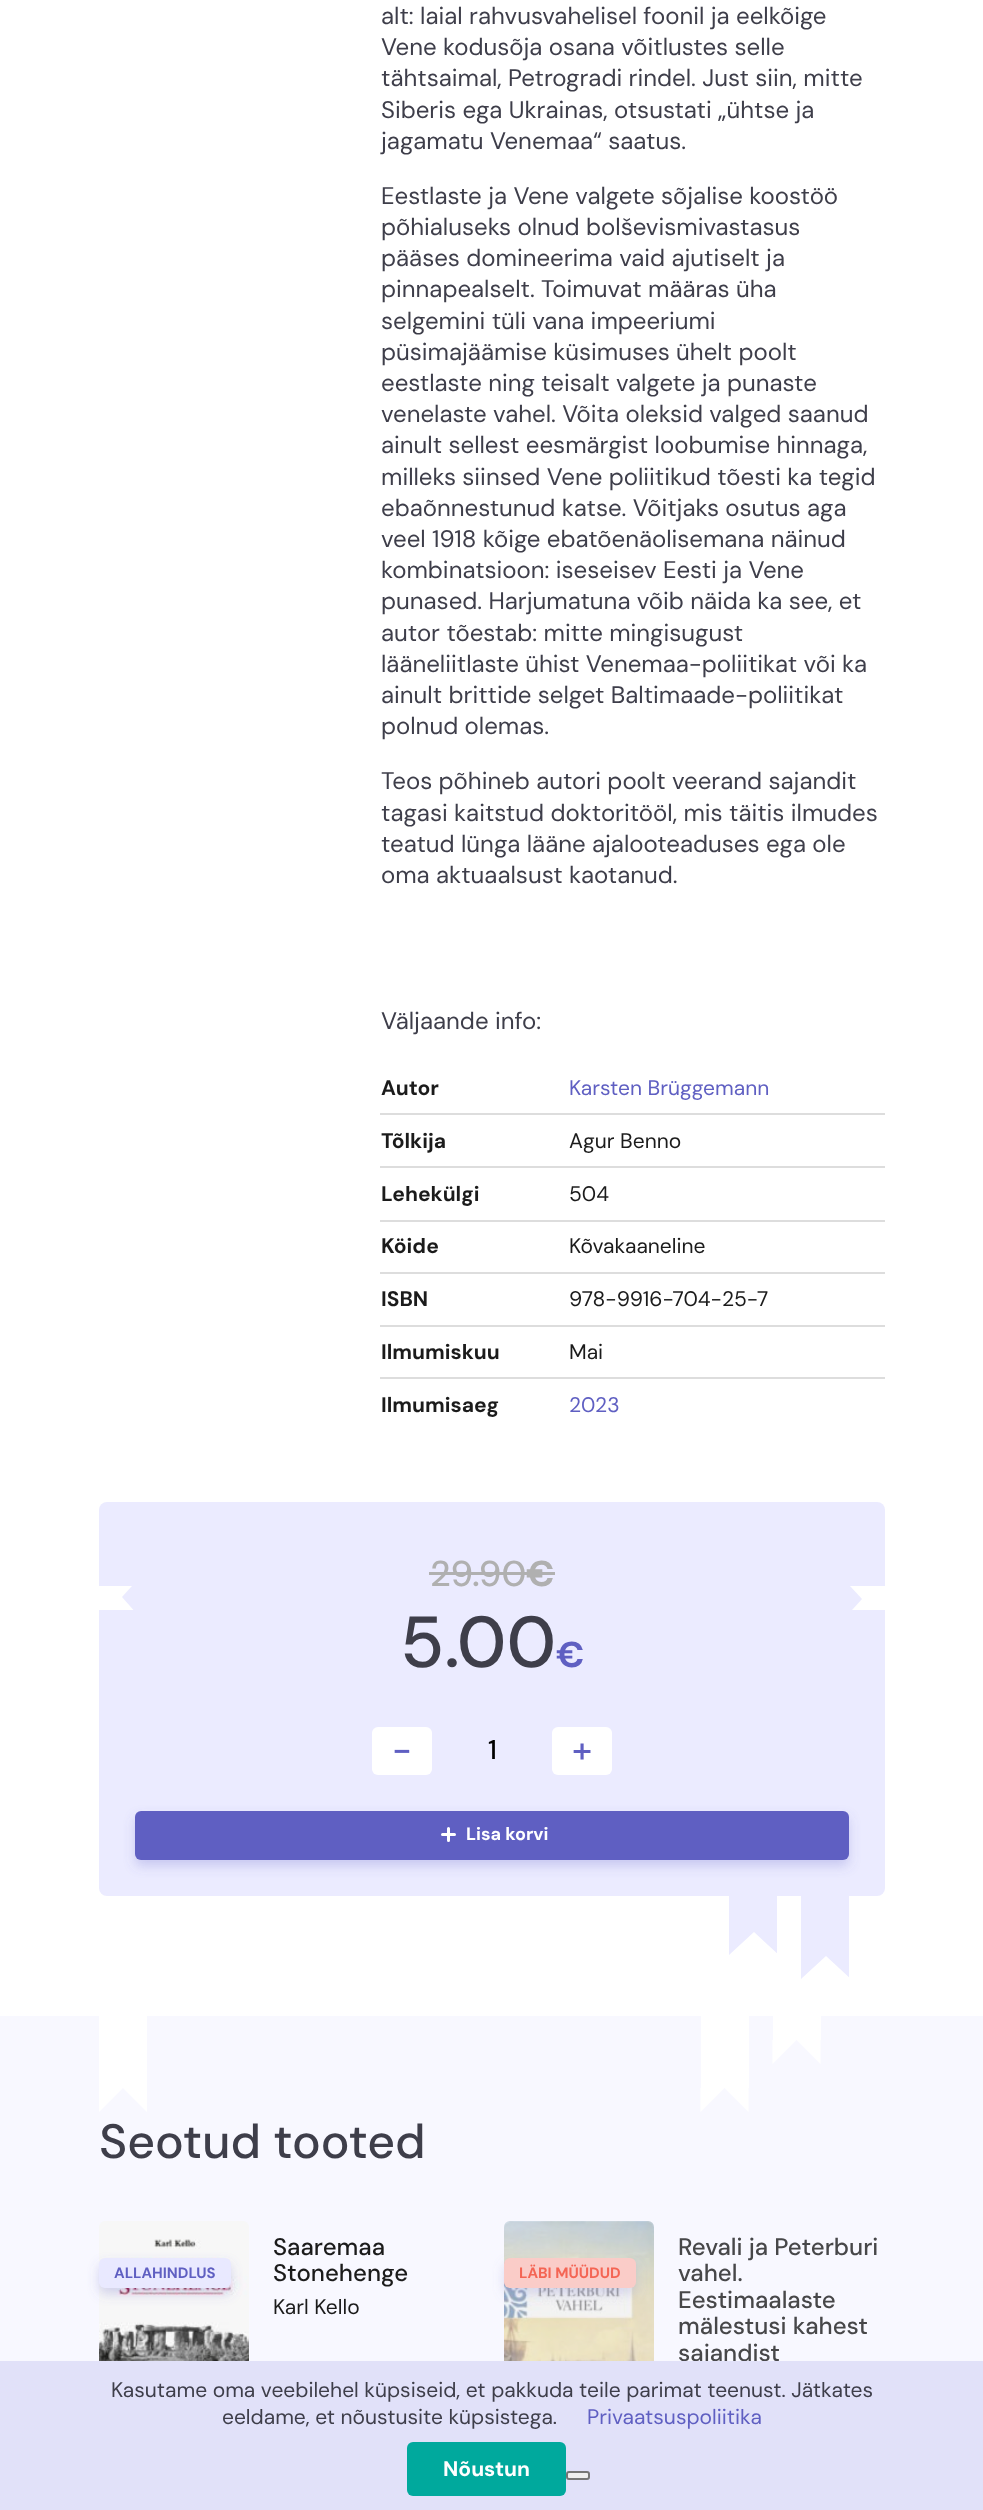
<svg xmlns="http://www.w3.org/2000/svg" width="983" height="2510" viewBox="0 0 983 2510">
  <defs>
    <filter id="blur1" x="-50%" y="-200%" width="200%" height="500%"><feGaussianBlur stdDeviation="6"/></filter>
    <clipPath id="clip1"><rect x="729" y="1896" width="48" height="60"/></clipPath>
    <clipPath id="clip2"><rect x="801" y="1896" width="48" height="84"/></clipPath>
  </defs>
  <rect width="100%" height="100%" fill="#ffffff"/>
  <text x="381" y="24" font-family="DM Sans" font-size="24" fill="#3e3e4a">alt: laial rahvusvahelisel foonil ja eelkõige</text>
  <text x="381" y="55" font-family="DM Sans" font-size="24" fill="#3e3e4a">Vene kodusõja osana võitlustes selle</text>
  <text x="381" y="86" font-family="DM Sans" font-size="24" fill="#3e3e4a">tähtsaimal, Petrogradi rindel. Just siin, mitte</text>
  <text x="381" y="118" font-family="DM Sans" font-size="24" fill="#3e3e4a">Siberis ega Ukrainas, otsustati „ühtse ja</text>
  <text x="381" y="149" font-family="DM Sans" font-size="24" fill="#3e3e4a">jagamatu Venemaa“ saatus.</text>
  <text x="381" y="204" font-family="DM Sans" font-size="24" fill="#3e3e4a">Eestlaste ja Vene valgete sõjalise koostöö</text>
  <text x="381" y="235" font-family="DM Sans" font-size="24" fill="#3e3e4a">põhialuseks olnud bolševismivastasus</text>
  <text x="381" y="266" font-family="DM Sans" font-size="24" fill="#3e3e4a">pääses domineerima vaid ajutiselt ja</text>
  <text x="381" y="297" font-family="DM Sans" font-size="24" fill="#3e3e4a">pinnapealselt. Toimuvat määras üha</text>
  <text x="381" y="329" font-family="DM Sans" font-size="24" fill="#3e3e4a">selgemini tüli vana impeeriumi</text>
  <text x="381" y="360" font-family="DM Sans" font-size="24" fill="#3e3e4a">püsimajäämise küsimuses ühelt poolt</text>
  <text x="381" y="391" font-family="DM Sans" font-size="24" fill="#3e3e4a">eestlaste ning teisalt valgete ja punaste</text>
  <text x="381" y="422" font-family="DM Sans" font-size="24" fill="#3e3e4a">venelaste vahel. Võita oleksid valged saanud</text>
  <text x="381" y="453" font-family="DM Sans" font-size="24" fill="#3e3e4a">ainult sellest eesmärgist loobumise hinnaga,</text>
  <text x="381" y="485" font-family="DM Sans" font-size="24" fill="#3e3e4a">milleks siinsed Vene poliitikud tõesti ka tegid</text>
  <text x="381" y="516" font-family="DM Sans" font-size="24" fill="#3e3e4a">ebaõnnestunud katse. Võitjaks osutus aga</text>
  <text x="381" y="547" font-family="DM Sans" font-size="24" fill="#3e3e4a">veel 1918 kõige ebatõenäolisemana näinud</text>
  <text x="381" y="578" font-family="DM Sans" font-size="24" fill="#3e3e4a">kombinatsioon: iseseisev Eesti ja Vene</text>
  <text x="381" y="609" font-family="DM Sans" font-size="24" fill="#3e3e4a">punased. Harjumatuna võib näida ka see, et</text>
  <text x="381" y="641" font-family="DM Sans" font-size="24" fill="#3e3e4a">autor tõestab: mitte mingisugust</text>
  <text x="381" y="672" font-family="DM Sans" font-size="24" fill="#3e3e4a">lääneliitlaste ühist Venemaa-poliitikat või ka</text>
  <text x="381" y="703" font-family="DM Sans" font-size="24" fill="#3e3e4a">ainult brittide selget Baltimaade-poliitikat</text>
  <text x="381" y="734" font-family="DM Sans" font-size="24" fill="#3e3e4a">polnud olemas.</text>
  <text x="381" y="789" font-family="DM Sans" font-size="24" fill="#3e3e4a">Teos põhineb autori poolt veerand sajandit</text>
  <text x="381" y="821" font-family="DM Sans" font-size="24" fill="#3e3e4a">tagasi kaitstud doktoritööl, mis täitis ilmudes</text>
  <text x="381" y="852" font-family="DM Sans" font-size="24" fill="#3e3e4a">teatud lünga lääne ajalooteaduses ega ole</text>
  <text x="381" y="883" font-family="DM Sans" font-size="24" fill="#3e3e4a">oma aktuaalsust kaotanud.</text>
  <text x="381" y="1029" font-family="DM Sans" font-size="24" fill="#3e3e4a">Väljaande info:</text>
  <text x="381" y="1095" font-family="DM Sans" font-size="21" font-weight="bold" fill="#1b1b1b">Autor</text>
  <text x="569" y="1095" font-family="DM Sans" font-size="21" fill="#5f5fc2">Karsten Brüggemann</text>
  <text x="381" y="1148" font-family="DM Sans" font-size="21" font-weight="bold" fill="#1b1b1b">Tõlkija</text>
  <rect x="380" y="1113" width="505" height="2" fill="#dddddd"/>
  <text x="569" y="1148" font-family="DM Sans" font-size="21" fill="#1b1b1b">Agur Benno</text>
  <text x="381" y="1201" font-family="DM Sans" font-size="21" font-weight="bold" fill="#1b1b1b">Lehekülgi</text>
  <rect x="380" y="1166" width="505" height="2" fill="#dddddd"/>
  <text x="569" y="1201" font-family="DM Sans" font-size="21" fill="#1b1b1b">504</text>
  <text x="381" y="1253" font-family="DM Sans" font-size="21" font-weight="bold" fill="#1b1b1b">Köide</text>
  <rect x="380" y="1220" width="505" height="2" fill="#dddddd"/>
  <text x="569" y="1253" font-family="DM Sans" font-size="21" fill="#1b1b1b">Kõvakaaneline</text>
  <text x="381" y="1306" font-family="DM Sans" font-size="21" font-weight="bold" fill="#1b1b1b">ISBN</text>
  <rect x="380" y="1272" width="505" height="2" fill="#dddddd"/>
  <text x="569" y="1306" font-family="DM Sans" font-size="21" fill="#1b1b1b">978-9916-704-25-7</text>
  <text x="381" y="1359" font-family="DM Sans" font-size="21" font-weight="bold" fill="#1b1b1b">Ilmumiskuu</text>
  <rect x="380" y="1325" width="505" height="2" fill="#dddddd"/>
  <text x="569" y="1359" font-family="DM Sans" font-size="21" fill="#1b1b1b">Mai</text>
  <text x="381" y="1412" font-family="DM Sans" font-size="21" font-weight="bold" fill="#1b1b1b">Ilmumisaeg</text>
  <rect x="380" y="1377" width="505" height="2" fill="#dddddd"/>
  <text x="569" y="1412" font-family="DM Sans" font-size="21" fill="#5f5fc2">2023</text>
  <rect x="99" y="1502" width="786" height="394" rx="8" fill="#ebebff"/>
  <text x="430" y="1586" font-family="DM Sans" font-size="36" font-weight="500" fill="#b0b0b0">29.90</text>
  <rect x="429" y="1572" width="98" height="3" fill="#b0b0b0"/>
  <text x="526" y="1586" font-family="DM Sans" font-size="36" font-weight="bold" fill="#b0b0b0">€</text>
  <rect x="527" y="1572" width="28" height="3" fill="#b0b0b0"/>
  <path d="M99 1610H133.5L122 1597L132 1586H99Z" fill="#ffffff"/>
  <path d="M885 1586V1610H852L862 1599L850 1586Z" fill="#ffffff"/>
  <text x="400" y="1667" font-family="DM Sans" font-size="72" font-weight="500" fill="#3e3e4a">5.00</text>
  <text x="556" y="1667" font-family="DM Sans" font-size="36" font-weight="bold" fill="#5f5fc2">€</text>
  <rect x="372" y="1727" width="60" height="48" rx="6" fill="#ffffff"/>
  <text x="392" y="1762" font-family="DM Sans" font-size="36" font-weight="500" fill="#5f5fc2">-</text>
  <text x="488" y="1759" font-family="DM Sans" font-size="27" font-weight="500" fill="#000000">1</text>
  <rect x="552" y="1727" width="60" height="48" rx="6" fill="#ffffff"/>
  <text x="572" y="1762" font-family="DM Sans" font-size="36" font-weight="500" fill="#5f5fc2">+</text>
  <rect x="135" y="1817" width="714" height="49" rx="6" fill="#5f5fc2" fill-opacity="0.25" filter="url(#blur1)"/>
  <rect x="135" y="1811" width="714" height="49" rx="6" fill="#5f5fc2"/>
  <path d="M442.5 1834.5H454.5M448.5 1828.5V1840.5" fill="none" stroke="#ffffff" stroke-width="3" stroke-linecap="round"/>
  <text x="466" y="1840" font-family="DM Sans" font-size="18" font-weight="bold" fill="#ffffff">Lisa korvi</text>
  <g clip-path="url(#clip1)">
    <path d="M728 1860H780V1956L754 1932L728 1956Z" fill="#ebebff"/>
  </g>
  <g clip-path="url(#clip2)">
    <path d="M800 1884H852V1980L826 1956L800 1980Z" fill="#ebebff"/>
  </g>
  <rect x="0" y="2016" width="983" height="345" fill="#f8f8ff"/>
  <rect x="99" y="2016" width="48" height="72" fill="#ffffff"/>
  <path d="M99 2088H123L99 2112ZM147 2088V2112L123 2088Z" fill="#ffffff"/>
  <rect x="701" y="2016" width="48" height="72" fill="#ffffff"/>
  <path d="M700.5 2088H724.5L700.5 2112Z" fill="#ffffff"/>
  <path d="M748.5 2088V2112L724.5 2088Z" fill="#ffffff"/>
  <rect x="773" y="2016" width="48" height="24" fill="#ffffff"/>
  <path d="M772.5 2040H796.5L772.5 2064Z" fill="#ffffff"/>
  <path d="M820.5 2040V2064L796.5 2040Z" fill="#ffffff"/>
  <text x="99" y="2158" font-family="DM Sans" font-size="48" font-weight="500" fill="#3e3e4a">Seotud tooted</text>
  <image x="99" y="2221" width="150" height="140" href="img1.png"/>
  <text x="273" y="2255" font-family="DM Sans" font-size="24" font-weight="500" fill="#1b1b1b">Saaremaa</text>
  <text x="273" y="2281" font-family="DM Sans" font-size="24" font-weight="500" fill="#1b1b1b">Stonehenge</text>
  <text x="273" y="2314" font-family="DM Sans" font-size="21" fill="#1b1b1b">Karl Kello</text>
  <rect x="99" y="2264" width="132" height="30" rx="6" fill="#5f5fc2" fill-opacity="0.25" filter="url(#blur1)"/>
  <rect x="99" y="2258" width="132" height="30" rx="6" fill="#e9e9ff"/>
  <text x="114" y="2278" font-family="DM Sans" font-size="15" font-weight="bold" fill="#5f5fc2">ALLAHINDLUS</text>
  <rect x="504" y="2222" width="150" height="225" rx="8" fill="#ebebef"/>
  <image x="504" y="2221" width="150" height="140" href="img2.png"/>
  <text x="678" y="2255" font-family="DM Sans" font-size="24" font-weight="500" fill="#474749">Revali ja Peterburi</text>
  <text x="678" y="2281" font-family="DM Sans" font-size="24" font-weight="500" fill="#474749">vahel.</text>
  <text x="678" y="2308" font-family="DM Sans" font-size="24" font-weight="500" fill="#474749">Eestimaalaste</text>
  <text x="678" y="2334" font-family="DM Sans" font-size="24" font-weight="500" fill="#474749">mälestusi kahest</text>
  <text x="678" y="2361" font-family="DM Sans" font-size="24" font-weight="500" fill="#474749">sajandist</text>
  <rect x="504" y="2264" width="132" height="30" rx="6" fill="#7e7ece" fill-opacity="0.25" filter="url(#blur1)"/>
  <rect x="504" y="2258" width="132" height="30" rx="6" fill="#faccc8"/>
  <text x="519" y="2278" font-family="DM Sans" font-size="15" font-weight="bold" fill="#f46554">LÄBI MÜÜDUD</text>
  <rect x="0" y="2361" width="983" height="149" fill="#e1e1f9"/>
  <text x="111" y="2397" font-family="DM Sans" font-size="21" fill="#3e3e4a">Kasutame oma veebilehel küpsiseid, et pakkuda teile parimat teenust. Jätkates</text>
  <text x="222" y="2424" font-family="DM Sans" font-size="21" fill="#3e3e4a">eeldame, et nõustusite küpsistega.</text>
  <text x="587" y="2424" font-family="DM Sans" font-size="21" fill="#5f5fc2">Privaatsuspoliitika</text>
  <rect x="407" y="2442" width="159" height="54" rx="6" fill="#00a99d"/>
  <text x="443" y="2476" font-family="DM Sans" font-size="21" font-weight="bold" fill="#ffffff">Nõustun</text>
  <rect x="567" y="2472" width="22" height="7" rx="2" fill="#efefef" stroke="#767676" stroke-width="2"/>
</svg>
